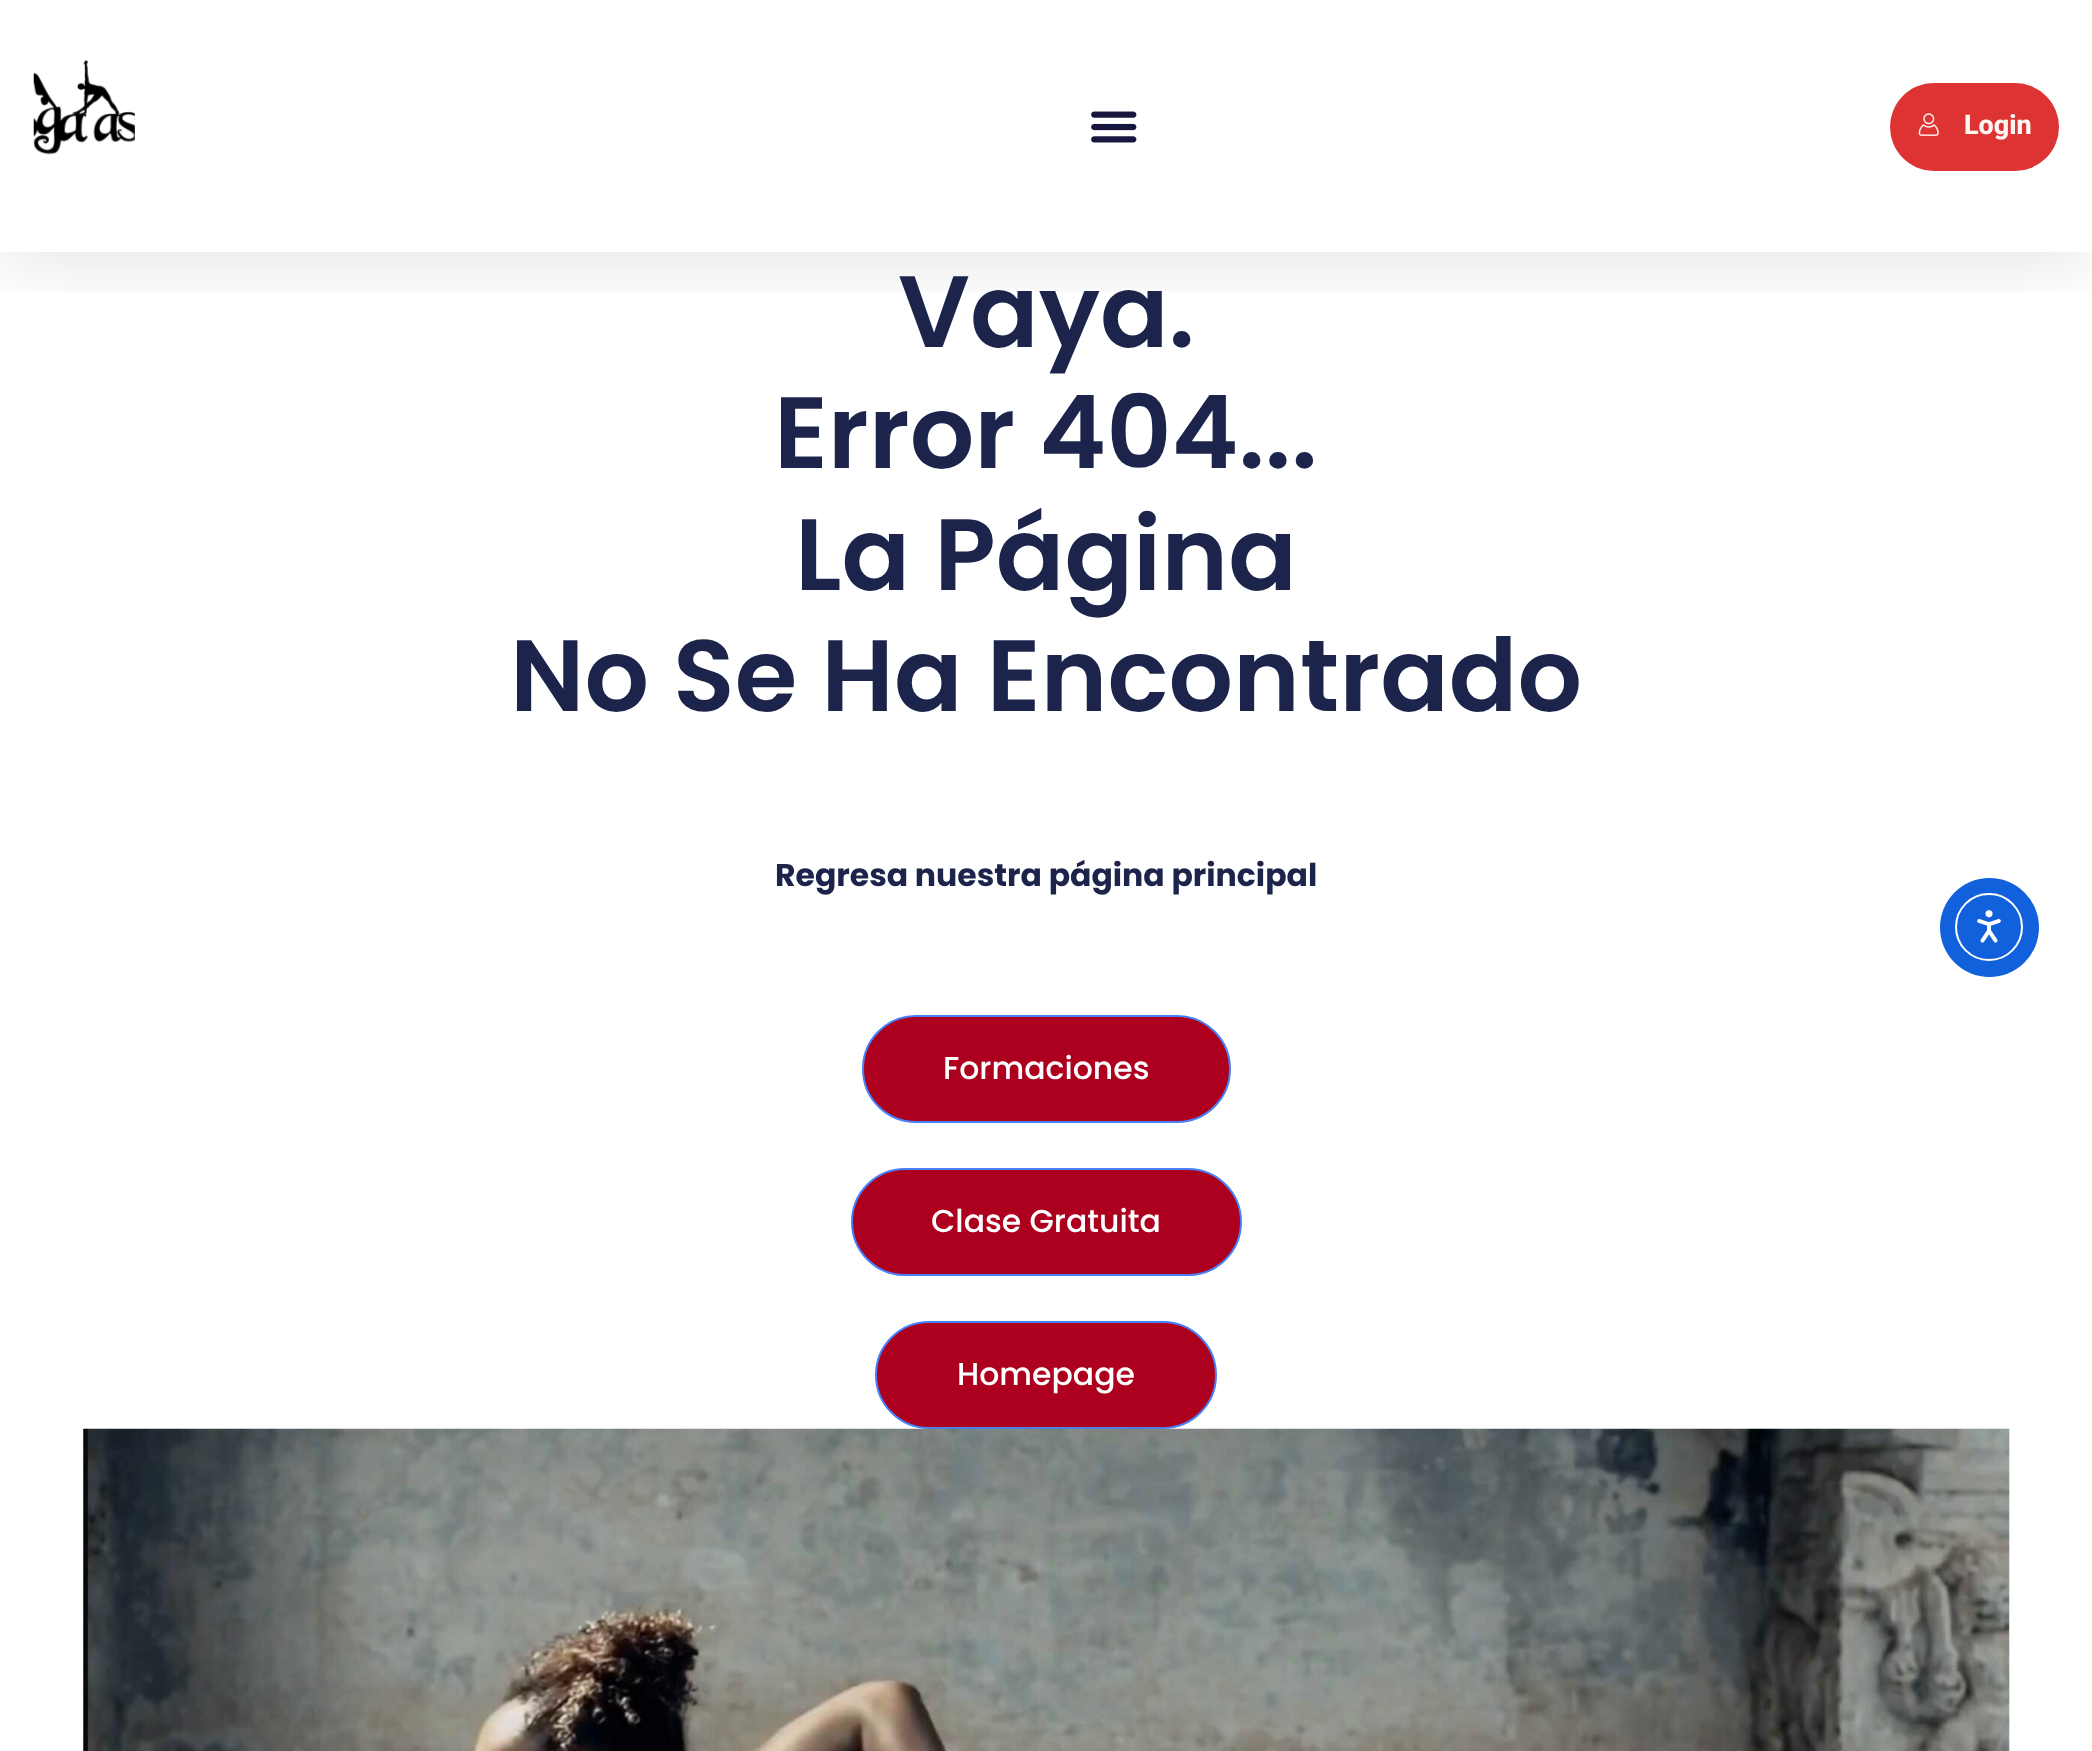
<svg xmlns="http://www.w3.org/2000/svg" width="2092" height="1751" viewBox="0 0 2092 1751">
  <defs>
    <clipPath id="clip1"><rect x="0" y="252" width="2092" height="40"/></clipPath>
    <filter id="blur1" x="-50%" y="-200%" width="200%" height="500%"><feGaussianBlur stdDeviation="34"/></filter>
  </defs>
  <rect width="100%" height="100%" fill="#ffffff"/>
  <g clip-path="url(#clip1)">
    <rect x="0" y="11" width="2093" height="252" fill="#000000" fill-opacity="0.1" filter="url(#blur1)"/>
  </g>
  <image x="33" y="60" width="102" height="95" href="img1.png"/>
  <image x="1091" y="111" width="46" height="32" href="img2.png"/>
  <rect x="1890" y="83" width="169" height="88" rx="44" fill="#dd3333"/>
  <image x="1918" y="113" width="21" height="23" href="img3.png"/>
  <text x="1964" y="134" font-family="Roboto" font-size="27" font-weight="800" fill="#fdf7f3">Login</text>
  <text x="898" y="347" font-family="Poppins" font-size="101.25" font-weight="600" fill="#1c244b">Vaya.</text>
  <text x="774" y="468" font-family="Poppins" font-size="101.25" font-weight="600" fill="#1c244b">Error 404...</text>
  <text x="795" y="590" font-family="Poppins" font-size="101.25" font-weight="600" fill="#1c244b">La Página</text>
  <text x="510" y="711" font-family="Poppins" font-size="101.25" font-weight="600" fill="#1c244b">No Se Ha Encontrado</text>
  <text x="775" y="886" font-family="Poppins" font-size="31.5" font-weight="bold" fill="#1c244b">Regresa nuestra página principal</text>
  <rect x="863" y="1016" width="367" height="106" rx="53" fill="#ac001e" stroke="#467ff7" stroke-width="2"/>
  <text x="943" y="1079" font-family="Poppins" font-size="31.5" font-weight="500" fill="#ffffff">Formaciones</text>
  <rect x="852" y="1169" width="389" height="106" rx="53" fill="#ac001e" stroke="#467ff7" stroke-width="2"/>
  <text x="931" y="1232" font-family="Poppins" font-size="31.5" font-weight="500" fill="#ffffff">Clase Gratuita</text>
  <rect x="876" y="1322" width="340" height="106" rx="53" fill="#ac001e" stroke="#467ff7" stroke-width="2"/>
  <text x="957" y="1385" font-family="Poppins" font-size="31.5" font-weight="500" fill="#ffffff">Homepage</text>
  <image x="83" y="1428" width="1927" height="323" href="img4.png"/>
  <circle cx="1989.5" cy="927.5" r="49.5" fill="#1160dc"/>
  <circle cx="1989" cy="927" r="33" fill="none" stroke="#ffffff" stroke-width="2"/>
  <image x="1977" y="910" width="24" height="33" href="img5.png"/>
</svg>
